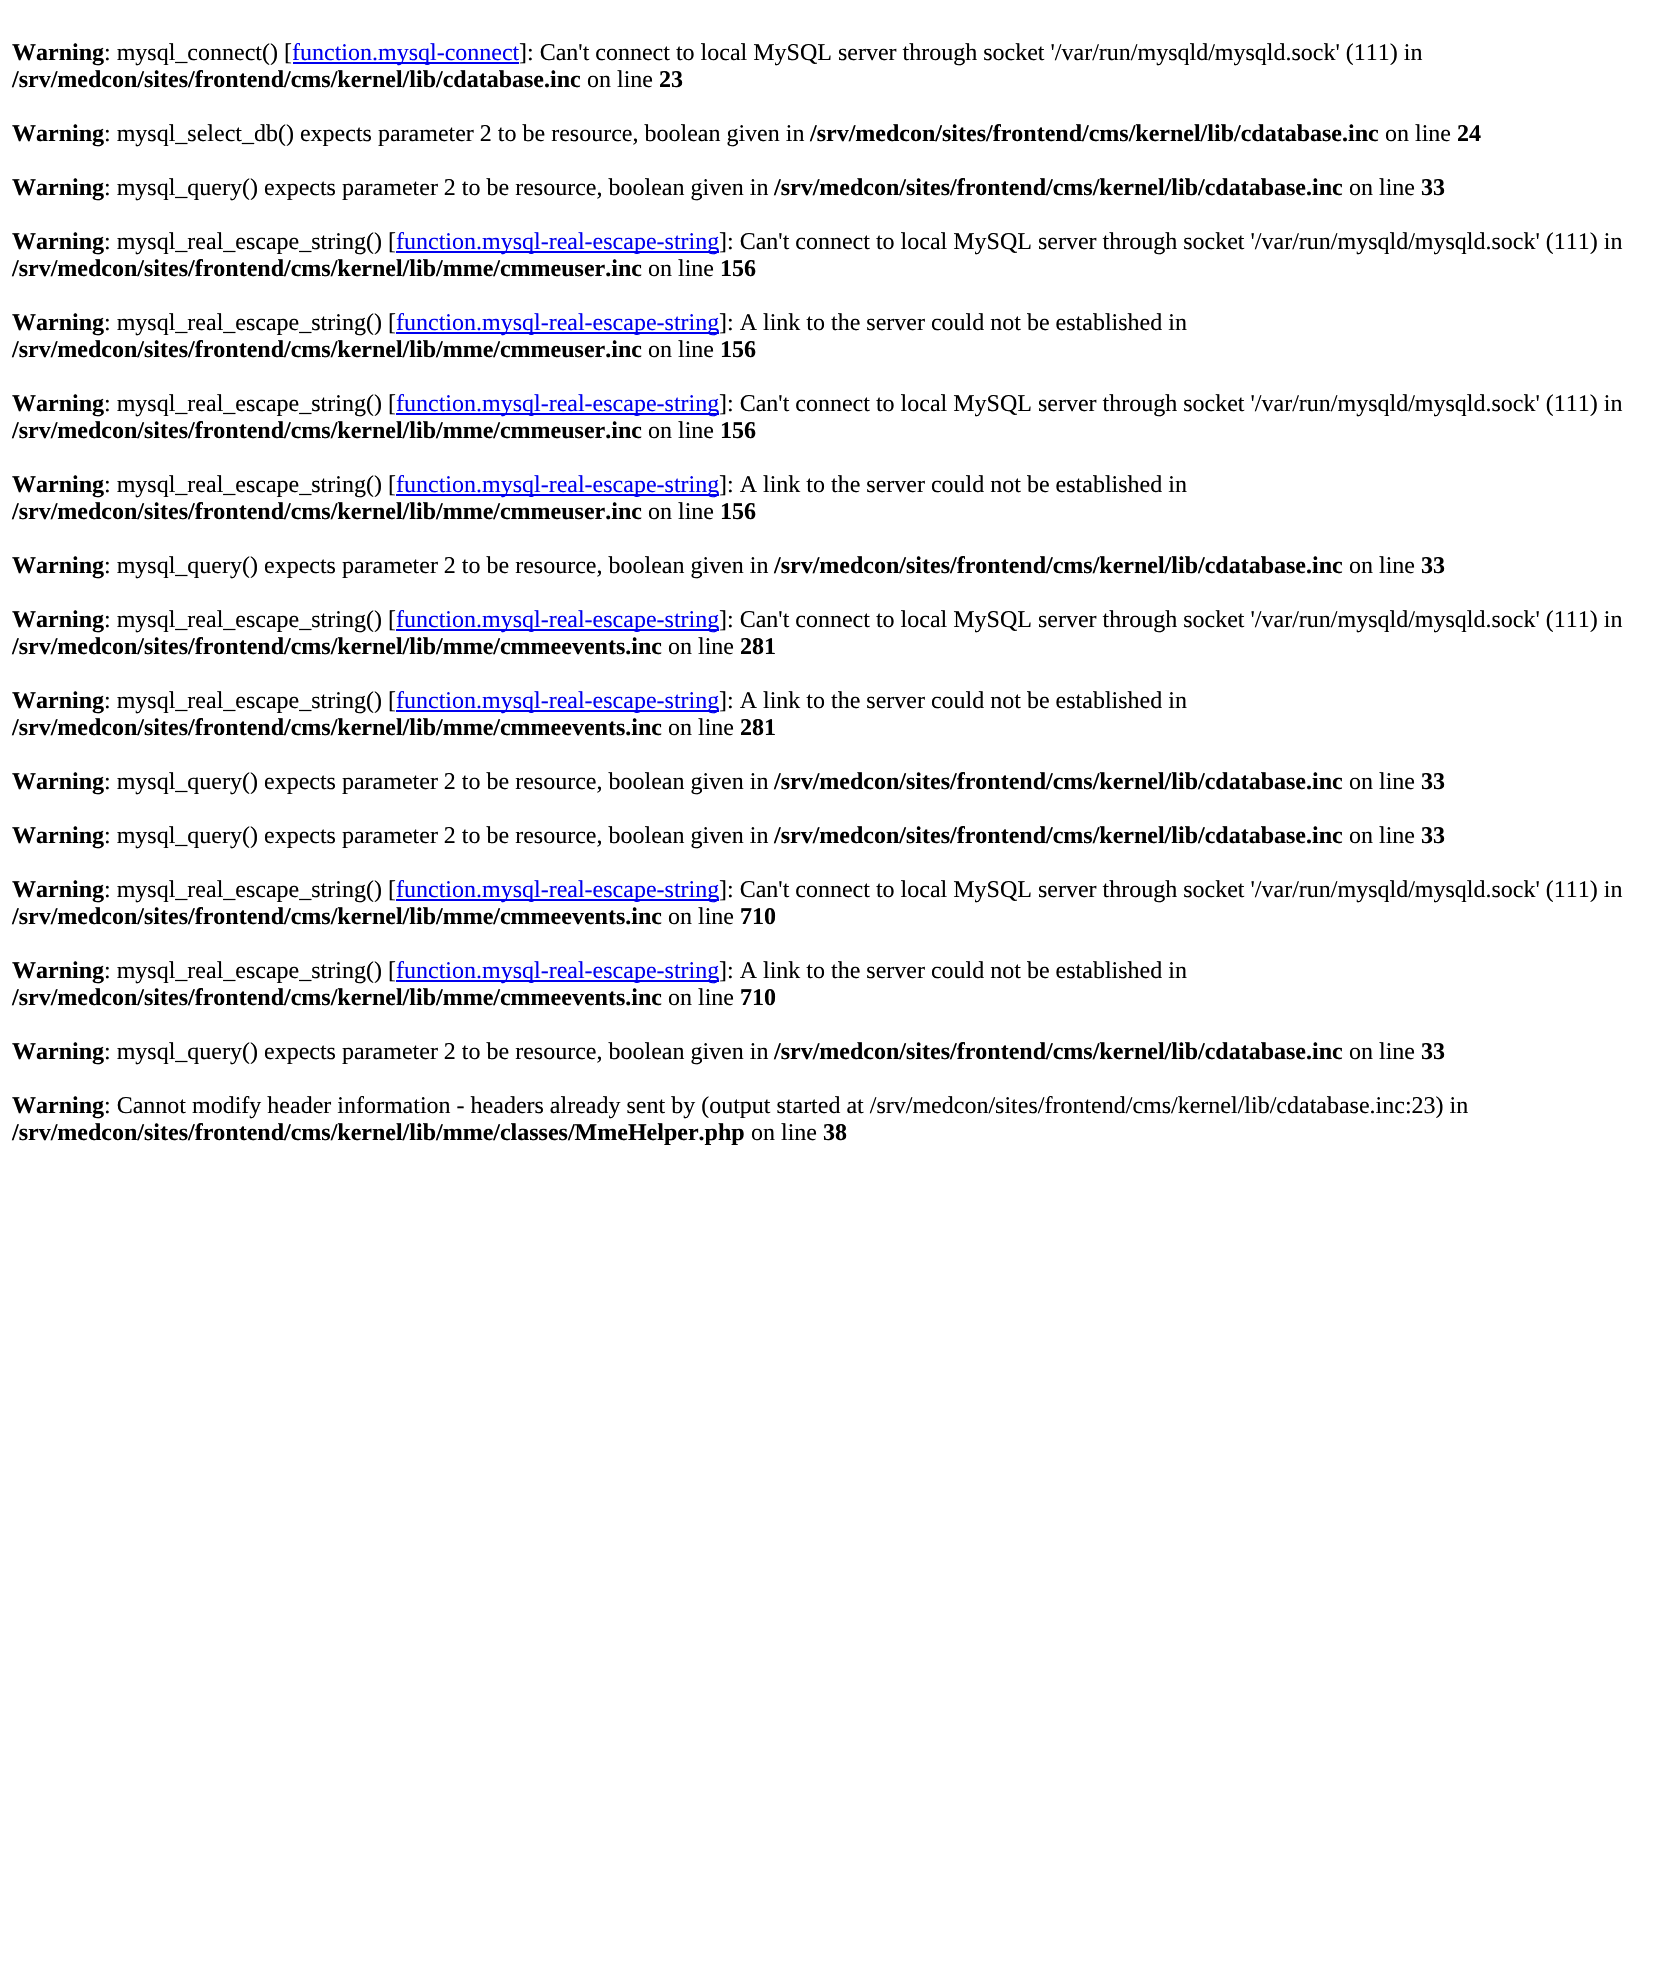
void draw(SkCanvas* canvas) {
	SkPaint paint;
	paint.setAntiAlias(true);
	canvas->clear(0xffffffff);
	SkFont f1(fontMgr->matchFamilyStyle("Liberation Serif", SkFontStyle::Bold()), 24);
	f1.setSubpixel(true);
	paint.setColor(0xff000000);
	canvas->drawString("Warning", 12, 60, f1, paint);
	SkFont f2(fontMgr->matchFamilyStyle("Liberation Serif", SkFontStyle::Normal()), 24);
	f2.setSubpixel(true);
	canvas->drawString(": mysql_connect() [", 104, 60, f2, paint);
	paint.setColor(0xff0000ee);
	canvas->drawRect(SkRect::MakeXYWH(293, 62, 226, 2), paint);
	canvas->drawString("function.mysql-connect", 292, 60, f2, paint);
	paint.setColor(0xff000000);
	canvas->drawString("]: Can't connect to local MySQL server through socket '/var/run/mysqld/mysqld.sock' (111) in", 519, 60, f2, paint);
	canvas->drawString("/srv/medcon/sites/frontend/cms/kernel/lib/cdatabase.inc", 12, 87, f1, paint);
	canvas->drawString("on line", 587, 87, f2, paint);
	canvas->drawString("23", 659, 87, f1, paint);
	canvas->drawString("Warning", 12, 141, f1, paint);
	canvas->drawString(": mysql_select_db() expects parameter 2 to be resource, boolean given in", 104, 141, f2, paint);
	canvas->drawString("/srv/medcon/sites/frontend/cms/kernel/lib/cdatabase.inc", 810, 141, f1, paint);
	canvas->drawString("on line", 1385, 141, f2, paint);
	canvas->drawString("24", 1457, 141, f1, paint);
	canvas->drawString("Warning", 12, 195, f1, paint);
	canvas->drawString(": mysql_query() expects parameter 2 to be resource, boolean given in", 104, 195, f2, paint);
	canvas->drawString("/srv/medcon/sites/frontend/cms/kernel/lib/cdatabase.inc", 774, 195, f1, paint);
	canvas->drawString("on line", 1349, 195, f2, paint);
	canvas->drawString("33", 1421, 195, f1, paint);
	canvas->drawString("Warning", 12, 249, f1, paint);
	canvas->drawString(": mysql_real_escape_string() [", 104, 249, f2, paint);
	paint.setColor(0xff0000ee);
	canvas->drawRect(SkRect::MakeXYWH(396, 251, 323, 2), paint);
	canvas->drawString("function.mysql-real-escape-string", 396, 249, f2, paint);
	paint.setColor(0xff000000);
	canvas->drawString("]: Can't connect to local MySQL server through socket '/var/run/mysqld/mysqld.sock' (111) in", 719, 249, f2, paint);
	canvas->drawString("/srv/medcon/sites/frontend/cms/kernel/lib/mme/cmmeuser.inc", 12, 276, f1, paint);
	canvas->drawString("on line", 648, 276, f2, paint);
	canvas->drawString("156", 720, 276, f1, paint);
	canvas->drawString("Warning", 12, 330, f1, paint);
	canvas->drawString(": mysql_real_escape_string() [", 104, 330, f2, paint);
	paint.setColor(0xff0000ee);
	canvas->drawRect(SkRect::MakeXYWH(396, 332, 323, 2), paint);
	canvas->drawString("function.mysql-real-escape-string", 396, 330, f2, paint);
	paint.setColor(0xff000000);
	canvas->drawString("]: A link to the server could not be established in", 719, 330, f2, paint);
	canvas->drawString("/srv/medcon/sites/frontend/cms/kernel/lib/mme/cmmeuser.inc", 12, 357, f1, paint);
	canvas->drawString("on line", 648, 357, f2, paint);
	canvas->drawString("156", 720, 357, f1, paint);
	canvas->drawString("Warning", 12, 411, f1, paint);
	canvas->drawString(": mysql_real_escape_string() [", 104, 411, f2, paint);
	paint.setColor(0xff0000ee);
	canvas->drawRect(SkRect::MakeXYWH(396, 413, 323, 2), paint);
	canvas->drawString("function.mysql-real-escape-string", 396, 411, f2, paint);
	paint.setColor(0xff000000);
	canvas->drawString("]: Can't connect to local MySQL server through socket '/var/run/mysqld/mysqld.sock' (111) in", 719, 411, f2, paint);
	canvas->drawString("/srv/medcon/sites/frontend/cms/kernel/lib/mme/cmmeuser.inc", 12, 438, f1, paint);
	canvas->drawString("on line", 648, 438, f2, paint);
	canvas->drawString("156", 720, 438, f1, paint);
	canvas->drawString("Warning", 12, 492, f1, paint);
	canvas->drawString(": mysql_real_escape_string() [", 104, 492, f2, paint);
	paint.setColor(0xff0000ee);
	canvas->drawRect(SkRect::MakeXYWH(396, 494, 323, 2), paint);
	canvas->drawString("function.mysql-real-escape-string", 396, 492, f2, paint);
	paint.setColor(0xff000000);
	canvas->drawString("]: A link to the server could not be established in", 719, 492, f2, paint);
	canvas->drawString("/srv/medcon/sites/frontend/cms/kernel/lib/mme/cmmeuser.inc", 12, 519, f1, paint);
	canvas->drawString("on line", 648, 519, f2, paint);
	canvas->drawString("156", 720, 519, f1, paint);
	canvas->drawString("Warning", 12, 573, f1, paint);
	canvas->drawString(": mysql_query() expects parameter 2 to be resource, boolean given in", 104, 573, f2, paint);
	canvas->drawString("/srv/medcon/sites/frontend/cms/kernel/lib/cdatabase.inc", 774, 573, f1, paint);
	canvas->drawString("on line", 1349, 573, f2, paint);
	canvas->drawString("33", 1421, 573, f1, paint);
	canvas->drawString("Warning", 12, 627, f1, paint);
	canvas->drawString(": mysql_real_escape_string() [", 104, 627, f2, paint);
	paint.setColor(0xff0000ee);
	canvas->drawRect(SkRect::MakeXYWH(396, 629, 323, 2), paint);
	canvas->drawString("function.mysql-real-escape-string", 396, 627, f2, paint);
	paint.setColor(0xff000000);
	canvas->drawString("]: Can't connect to local MySQL server through socket '/var/run/mysqld/mysqld.sock' (111) in", 719, 627, f2, paint);
	canvas->drawString("/srv/medcon/sites/frontend/cms/kernel/lib/mme/cmmeevents.inc", 12, 654, f1, paint);
	canvas->drawString("on line", 668, 654, f2, paint);
	canvas->drawString("281", 740, 654, f1, paint);
	canvas->drawString("Warning", 12, 708, f1, paint);
	canvas->drawString(": mysql_real_escape_string() [", 104, 708, f2, paint);
	paint.setColor(0xff0000ee);
	canvas->drawRect(SkRect::MakeXYWH(396, 710, 323, 2), paint);
	canvas->drawString("function.mysql-real-escape-string", 396, 708, f2, paint);
	paint.setColor(0xff000000);
	canvas->drawString("]: A link to the server could not be established in", 719, 708, f2, paint);
	canvas->drawString("/srv/medcon/sites/frontend/cms/kernel/lib/mme/cmmeevents.inc", 12, 735, f1, paint);
	canvas->drawString("on line", 668, 735, f2, paint);
	canvas->drawString("281", 740, 735, f1, paint);
	canvas->drawString("Warning", 12, 789, f1, paint);
	canvas->drawString(": mysql_query() expects parameter 2 to be resource, boolean given in", 104, 789, f2, paint);
	canvas->drawString("/srv/medcon/sites/frontend/cms/kernel/lib/cdatabase.inc", 774, 789, f1, paint);
	canvas->drawString("on line", 1349, 789, f2, paint);
	canvas->drawString("33", 1421, 789, f1, paint);
	canvas->drawString("Warning", 12, 843, f1, paint);
	canvas->drawString(": mysql_query() expects parameter 2 to be resource, boolean given in", 104, 843, f2, paint);
	canvas->drawString("/srv/medcon/sites/frontend/cms/kernel/lib/cdatabase.inc", 774, 843, f1, paint);
	canvas->drawString("on line", 1349, 843, f2, paint);
	canvas->drawString("33", 1421, 843, f1, paint);
	canvas->drawString("Warning", 12, 897, f1, paint);
	canvas->drawString(": mysql_real_escape_string() [", 104, 897, f2, paint);
	paint.setColor(0xff0000ee);
	canvas->drawRect(SkRect::MakeXYWH(396, 899, 323, 2), paint);
	canvas->drawString("function.mysql-real-escape-string", 396, 897, f2, paint);
	paint.setColor(0xff000000);
	canvas->drawString("]: Can't connect to local MySQL server through socket '/var/run/mysqld/mysqld.sock' (111) in", 719, 897, f2, paint);
	canvas->drawString("/srv/medcon/sites/frontend/cms/kernel/lib/mme/cmmeevents.inc", 12, 924, f1, paint);
	canvas->drawString("on line", 668, 924, f2, paint);
	canvas->drawString("710", 740, 924, f1, paint);
	canvas->drawString("Warning", 12, 978, f1, paint);
	canvas->drawString(": mysql_real_escape_string() [", 104, 978, f2, paint);
	paint.setColor(0xff0000ee);
	canvas->drawRect(SkRect::MakeXYWH(396, 980, 323, 2), paint);
	canvas->drawString("function.mysql-real-escape-string", 396, 978, f2, paint);
	paint.setColor(0xff000000);
	canvas->drawString("]: A link to the server could not be established in", 719, 978, f2, paint);
	canvas->drawString("/srv/medcon/sites/frontend/cms/kernel/lib/mme/cmmeevents.inc", 12, 1005, f1, paint);
	canvas->drawString("on line", 668, 1005, f2, paint);
	canvas->drawString("710", 740, 1005, f1, paint);
	canvas->drawString("Warning", 12, 1059, f1, paint);
	canvas->drawString(": mysql_query() expects parameter 2 to be resource, boolean given in", 104, 1059, f2, paint);
	canvas->drawString("/srv/medcon/sites/frontend/cms/kernel/lib/cdatabase.inc", 774, 1059, f1, paint);
	canvas->drawString("on line", 1349, 1059, f2, paint);
	canvas->drawString("33", 1421, 1059, f1, paint);
	canvas->drawString("Warning", 12, 1113, f1, paint);
	canvas->drawString(": Cannot modify header information - headers already sent by (output started at /srv/medcon/sites/frontend/cms/kernel/lib/cdatabase.inc:23) in", 104, 1113, f2, paint);
	canvas->drawString("/srv/medcon/sites/frontend/cms/kernel/lib/mme/classes/MmeHelper.php", 12, 1140, f1, paint);
	canvas->drawString("on line", 751, 1140, f2, paint);
	canvas->drawString("38", 823, 1140, f1, paint);
}
